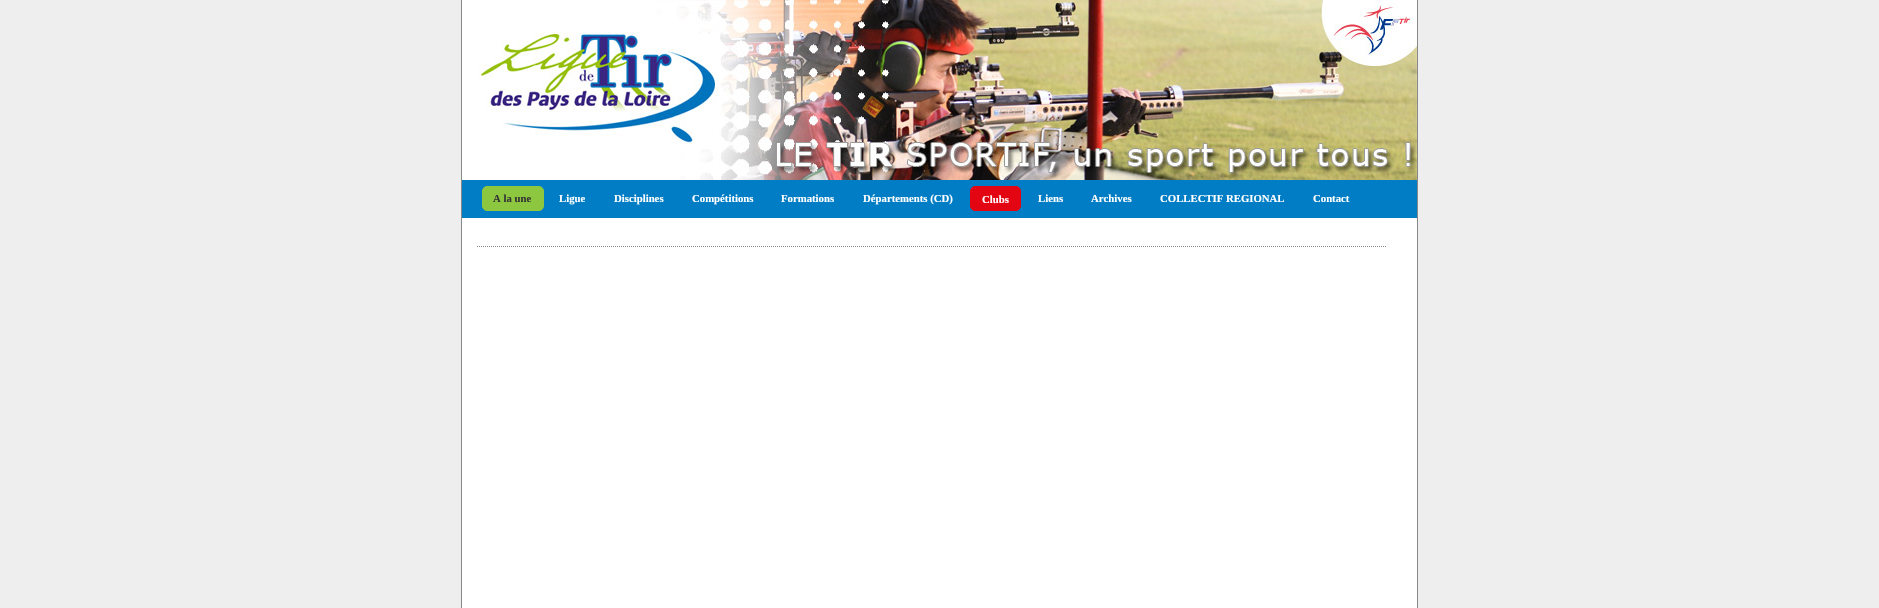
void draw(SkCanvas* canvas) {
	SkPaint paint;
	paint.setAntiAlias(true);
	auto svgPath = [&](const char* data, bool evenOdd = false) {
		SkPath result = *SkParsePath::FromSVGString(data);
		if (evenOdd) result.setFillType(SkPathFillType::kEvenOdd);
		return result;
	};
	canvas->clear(0xffeeeeee);
	paint.setColor(0xff888888);
	canvas->drawRect(SkRect::MakeXYWH(1417, 0, 1, 608), paint);
	canvas->drawRect(SkRect::MakeXYWH(461, 0, 1, 608), paint);
	canvas->drawImageRect(SkImages::DeferredFromEncodedData(SkData::MakeFromFileName("img1.png")), SkRect::MakeXYWH(462, 0, 955, 180), SkSamplingOptions());
	paint.setColor(0xff007dc4);
	canvas->drawRect(SkRect::MakeXYWH(462, 180, 955, 38), paint);
	paint.setColor(0xff8dc73f);
	canvas->drawRoundRect(SkRect::MakeXYWH(482.5, 186.5, 61, 24), 4.5, 4.5, paint);
	paint.setStroke(true);
	paint.setStrokeWidth(1);
	canvas->drawRoundRect(SkRect::MakeXYWH(482.5, 186.5, 61, 24), 4.5, 4.5, paint);
	SkFont f1(fontMgr->matchFamilyStyle("Liberation Serif", SkFontStyle::Bold()), 10.75);
	f1.setSubpixel(true);
	paint.setStroke(false);
	paint.setColor(0xff333333);
	canvas->drawString("A la une", 493, 202, f1, paint);
	paint.setColor(0xffffffff);
	canvas->drawString("Ligue", 559, 202, f1, paint);
	canvas->drawString("Disciplines", 614, 202, f1, paint);
	canvas->drawString("Compétitions", 692, 202, f1, paint);
	canvas->drawString("Formations", 781, 202, f1, paint);
	canvas->drawString("Départements (CD)", 863, 202, f1, paint);
	paint.setColor(0xffe30612);
	canvas->drawRoundRect(SkRect::MakeXYWH(970.5, 186.5, 50, 24), 4.5, 4.5, paint);
	paint.setStroke(true);
	canvas->drawRoundRect(SkRect::MakeXYWH(970.5, 186.5, 50, 24), 4.5, 4.5, paint);
	paint.setStroke(false);
	paint.setColor(0xffffffff);
	canvas->drawString("Clubs", 982, 203, f1, paint);
	canvas->drawString("Liens", 1038, 202, f1, paint);
	canvas->drawString("Archives", 1091, 202, f1, paint);
	canvas->drawString("COLLECTIF REGIONAL", 1160, 202, f1, paint);
	canvas->drawString("Contact", 1313, 202, f1, paint);
	canvas->drawRect(SkRect::MakeXYWH(462, 218, 955, 390), paint);
	paint.setStroke(true);
	paint.setColor(0xff888888);
	paint.setPathEffect(SkDashPathEffect::Make({{1, 1}}, 0));
	canvas->drawPath(svgPath("M477 246.5H1387"), paint);
	paint.setPathEffect(nullptr);
}
